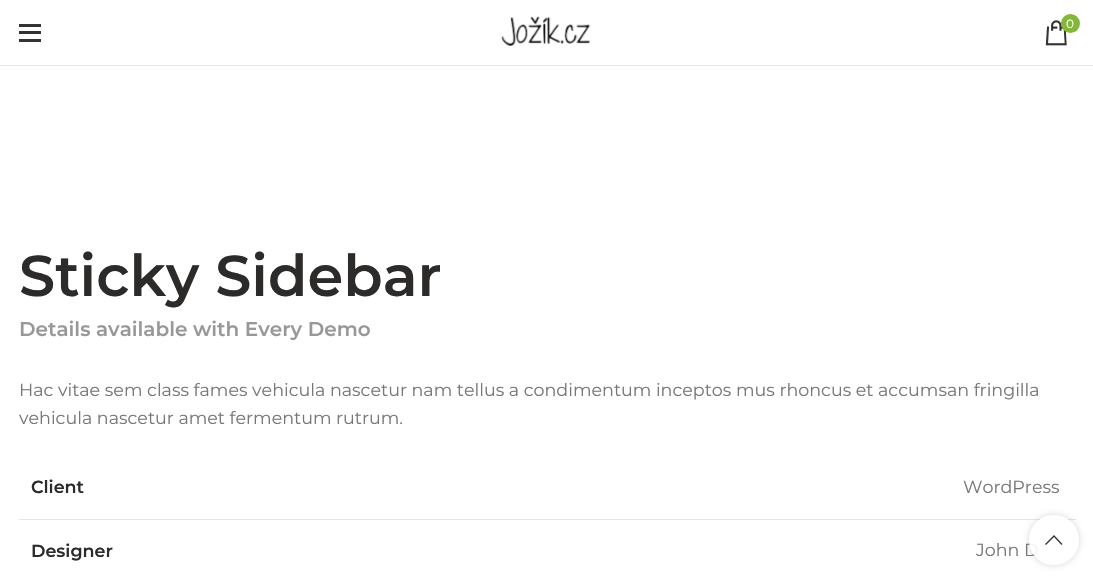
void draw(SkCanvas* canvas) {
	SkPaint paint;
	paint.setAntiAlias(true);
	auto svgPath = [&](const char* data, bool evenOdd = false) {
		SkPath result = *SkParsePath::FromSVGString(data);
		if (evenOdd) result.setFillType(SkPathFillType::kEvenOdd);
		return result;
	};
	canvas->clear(0xffffffff);
	paint.setColor(0xffe8e8e8);
	canvas->drawRect(SkRect::MakeXYWH(0, 65, 1093, 1), paint);
	paint.setColor(0xff333333);
	canvas->drawRect(SkRect::MakeXYWH(19, 31, 22, 3), paint);
	canvas->drawRect(SkRect::MakeXYWH(19, 24, 22, 3), paint);
	canvas->drawRect(SkRect::MakeXYWH(19, 39, 22, 3), paint);
	canvas->drawImageRect(SkImages::DeferredFromEncodedData(SkData::MakeFromFileName("img1.png")), SkRect::MakeXYWH(501, 16, 90, 30), SkSamplingOptions());
	canvas->drawImageRect(SkImages::DeferredFromEncodedData(SkData::MakeFromFileName("img2.png")), SkRect::MakeXYWH(1045, 20, 22, 26), SkSamplingOptions());
	paint.setColor(0xff83b735);
	canvas->drawCircle(1070.5, 23.5, 9.5, paint);
	SkFont f1(fontMgr->matchFamilyStyle("Montserrat", SkFontStyle::Normal()), 12);
	f1.setSubpixel(true);
	paint.setColor(0xffffffff);
	canvas->drawString("0", 1066, 28, f1, paint);
	SkFont f2(fontMgr->matchFamilyStyle("Montserrat", SkFontStyle(600, SkFontStyle::kNormal_Width, SkFontStyle::kUpright_Slant)), 57.5);
	f2.setSubpixel(true);
	paint.setColor(0xff2d2a2a);
	canvas->drawString("Sticky Sidebar", 19, 296, f2, paint);
	SkFont f3(fontMgr->matchFamilyStyle("Montserrat", SkFontStyle(600, SkFontStyle::kNormal_Width, SkFontStyle::kUpright_Slant)), 20);
	f3.setSubpixel(true);
	paint.setColor(0xff989898);
	canvas->drawString("Details available with Every Demo", 19, 336, f3, paint);
	SkFont f4(fontMgr->matchFamilyStyle("Montserrat", SkFontStyle::Normal()), 17.5);
	f4.setSubpixel(true);
	paint.setColor(0xff777777);
	canvas->drawString("Hac vitae sem class fames vehicula nascetur nam tellus a condimentum inceptos mus rhoncus et accumsan fringilla", 19, 396, f4, paint);
	canvas->drawString("vehicula nascetur amet fermentum rutrum.", 19, 424, f4, paint);
	SkFont f5(fontMgr->matchFamilyStyle("Montserrat", SkFontStyle(600, SkFontStyle::kNormal_Width, SkFontStyle::kUpright_Slant)), 17.5);
	f5.setSubpixel(true);
	paint.setColor(0xff2d2a2a);
	canvas->drawString("Client", 31, 493, f5, paint);
	paint.setColor(0xffe6e6e6);
	canvas->drawRect(SkRect::MakeXYWH(19, 519, 1057, 1), paint);
	paint.setColor(0xff777777);
	canvas->drawString("WordPress", 963, 493, f4, paint);
	paint.setColor(0xff2d2a2a);
	canvas->drawString("Designer", 31, 557, f5, paint);
	paint.setColor(0xff777777);
	canvas->drawString("John D", 976, 556, f4, paint);
	canvas->save();
	canvas->clipPath(svgPath("M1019 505H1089V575H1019ZM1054 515C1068 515 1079 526 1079 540C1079 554 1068 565 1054 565C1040 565 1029 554 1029 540C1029 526 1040 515 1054 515Z", true), true);
	paint.setColor(0x2b000000);
	paint.setMaskFilter(SkMaskFilter::MakeBlur(kNormal_SkBlurStyle, 3));
	canvas->drawRoundRect(SkRect::MakeXYWH(1029, 515, 50, 50), 25, 25, paint);
	paint.setMaskFilter(nullptr);
	canvas->restore();
	paint.setColor(0xe6ffffff);
	canvas->drawCircle(1054, 540, 25, paint);
	paint.setColor(0xff333333);
	canvas->drawPath(svgPath("M1054 535L1062.5 544L1061.5 545L1054 537L1046 545L1045 544Z"), paint);
}
